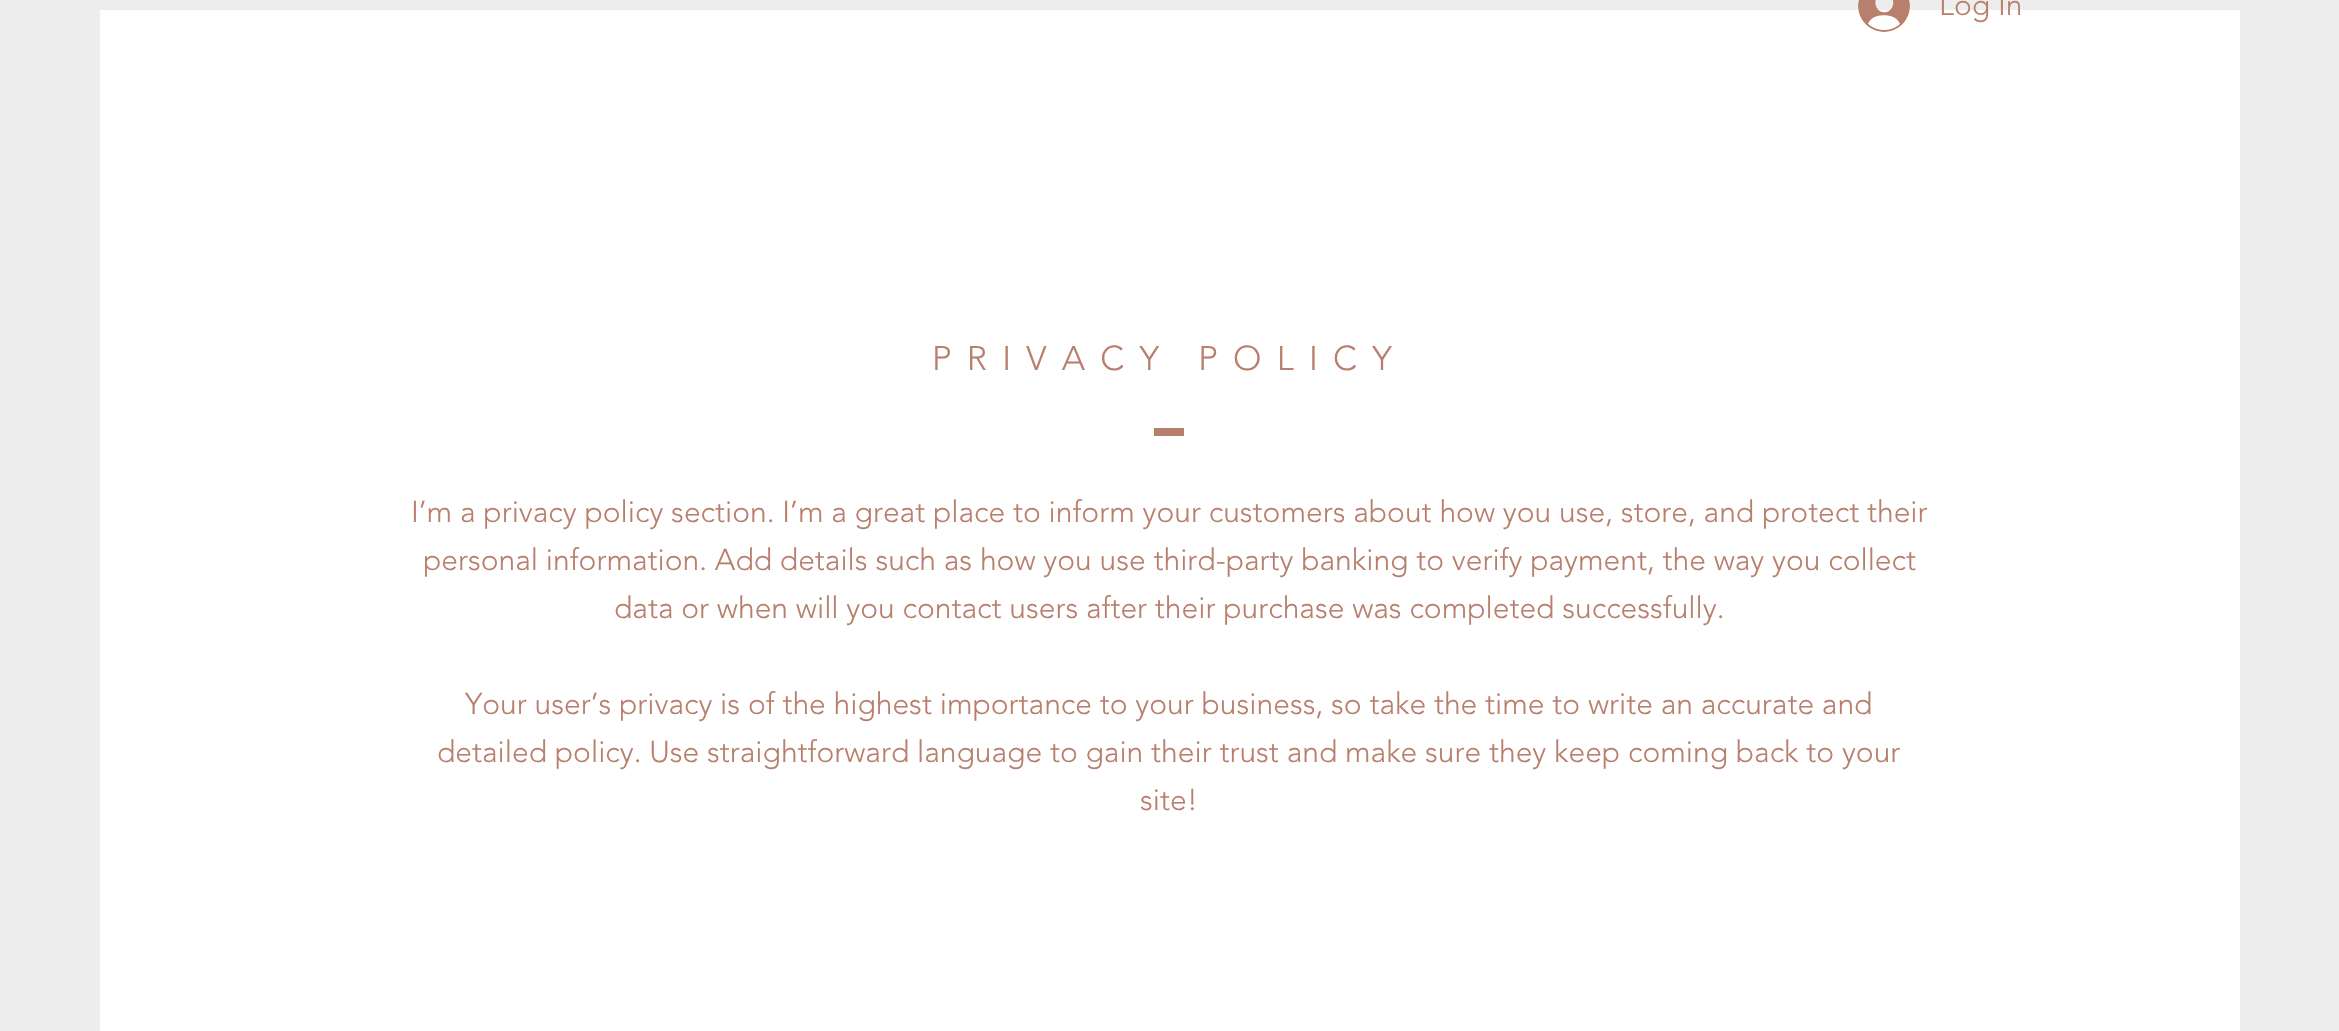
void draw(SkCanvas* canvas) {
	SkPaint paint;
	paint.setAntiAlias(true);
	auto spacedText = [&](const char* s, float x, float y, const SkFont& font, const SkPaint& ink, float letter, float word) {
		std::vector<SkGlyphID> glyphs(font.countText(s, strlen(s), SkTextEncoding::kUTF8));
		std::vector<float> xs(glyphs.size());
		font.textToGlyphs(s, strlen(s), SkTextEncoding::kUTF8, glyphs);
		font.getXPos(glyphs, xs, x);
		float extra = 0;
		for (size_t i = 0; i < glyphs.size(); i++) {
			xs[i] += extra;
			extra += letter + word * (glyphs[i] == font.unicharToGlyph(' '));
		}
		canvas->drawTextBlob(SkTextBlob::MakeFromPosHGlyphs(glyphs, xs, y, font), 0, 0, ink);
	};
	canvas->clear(0xffededee);
	paint.setColor(0xffffffff);
	canvas->drawRect(SkRect::MakeXYWH(100, 10, 2140, 1021), paint);
	canvas->drawImageRect(SkImages::DeferredFromEncodedData(SkData::MakeFromFileName("img1.png")), SkRect::MakeXYWH(1858, 0, 52, 32), SkSamplingOptions());
	SkFont f1(fontMgr->matchFamilyStyle("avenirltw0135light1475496", SkFontStyle(300, SkFontStyle::kNormal_Width, SkFontStyle::kUpright_Slant)), 30);
	f1.setSubpixel(true);
	paint.setColor(0xffb97f6d);
	canvas->drawString("Log In", 1939, 15, f1, paint);
	SkFont f2(fontMgr->matchFamilyStyle("avenirltw0135light1475496", SkFontStyle(300, SkFontStyle::kNormal_Width, SkFontStyle::kUpright_Slant)), 34);
	f2.setSubpixel(true);
	spacedText("PRIVACY POLICY", 932, 370, f2, paint, 15.25, 0);
	canvas->drawRect(SkRect::MakeXYWH(1154, 428, 30, 8), paint);
	canvas->drawString("I’m a privacy policy section. I’m a great place to inform your customers about how you use, store, and protect their", 411, 522, f1, paint);
	canvas->drawString("personal information. Add details such as how you use third-party banking to verify payment, the way you collect", 423, 570, f1, paint);
	canvas->drawString("data or when will you contact users after their purchase was completed successfully.", 614, 618, f1, paint);
	canvas->drawString("Your user’s privacy is of the highest importance to your business, so take the time to write an accurate and", 465, 714, f1, paint);
	canvas->drawString("detailed policy. Use straightforward language to gain their trust and make sure they keep coming back to your", 437, 762, f1, paint);
	canvas->drawString("site!", 1140, 810, f1, paint);
}
